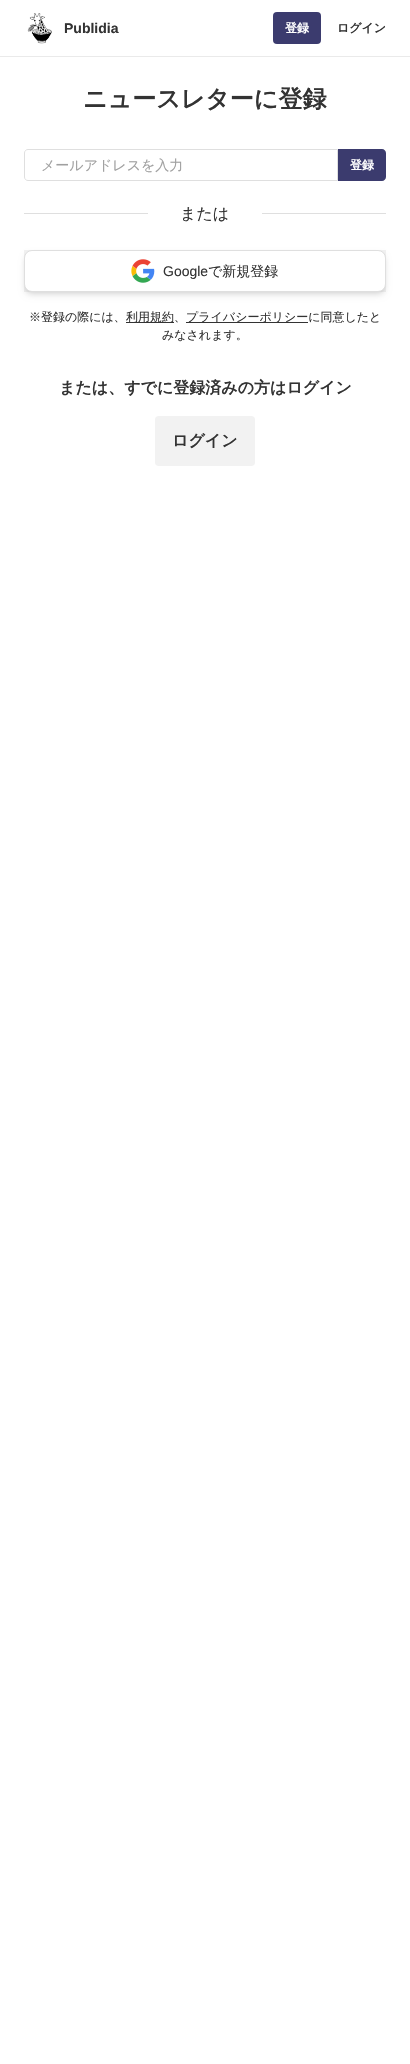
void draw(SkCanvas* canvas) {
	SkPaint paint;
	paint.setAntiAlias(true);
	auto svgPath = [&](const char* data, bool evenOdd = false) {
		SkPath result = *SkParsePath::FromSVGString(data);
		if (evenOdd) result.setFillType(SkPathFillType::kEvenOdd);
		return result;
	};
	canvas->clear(0xffffffff);
	paint.setColor(0xffeaeaea);
	canvas->drawRect(SkRect::MakeXYWH(0, 56, 410, 1), paint);
	canvas->drawImageRect(SkImages::DeferredFromEncodedData(SkData::MakeFromFileName("img1.png")), SkRect::MakeXYWH(27, 13, 25, 31), SkSamplingOptions());
	SkFont f1(fontMgr->matchFamilyStyle("Liberation Sans", SkFontStyle::Bold()), 14);
	f1.setSubpixel(true);
	paint.setColor(0xff333333);
	canvas->drawString("Publidia", 64, 33, f1, paint);
	paint.setColor(0xff3b3b6e);
	canvas->drawRoundRect(SkRect::MakeXYWH(273, 12, 48, 32), 4, 4, paint);
	SkFont f2(fontMgr->matchFamilyStyle("WenQuanYi Zen Hei", SkFontStyle::Bold()), 12);
	f2.setSubpixel(true);
	paint.setColor(0xffffffff);
	canvas->drawString("登録", 285, 32, f2, paint);
	paint.setColor(0xff333333);
	canvas->drawString("ログイン", 337, 32, f2, paint);
	SkFont f3(fontMgr->matchFamilyStyle("WenQuanYi Zen Hei", SkFontStyle::Bold()), 24);
	f3.setSubpixel(true);
	canvas->drawString("ニュースレターに登録", 83, 107, f3, paint);
	paint.setStroke(true);
	paint.setStrokeWidth(1);
	paint.setColor(0xffdfdfdf);
	canvas->drawPath(svgPath("M28 149.5H337.5V180.5H28C26 180.5 24.5 179 24.5 177V153C24.5 151 26 149.5 28 149.5Z"), paint);
	SkFont f4(fontMgr->matchFamilyStyle("WenQuanYi Zen Hei", SkFontStyle(500, SkFontStyle::kNormal_Width, SkFontStyle::kUpright_Slant)), 14);
	f4.setSubpixel(true);
	paint.setStroke(false);
	paint.setColor(0xffa0a0a0);
	canvas->drawString("メールアドレスを入力", 41, 170, f4, paint);
	paint.setColor(0xff3b3b6e);
	canvas->drawPath(svgPath("M338 149H382C384 149 386 151 386 153V177C386 179 384 181 382 181H338Z"), paint);
	paint.setColor(0xffffffff);
	canvas->drawString("登録", 350, 169, f2, paint);
	paint.setColor(0xffdfdfdf);
	canvas->drawRect(SkRect::MakeXYWH(24, 213, 362, 1), paint);
	paint.setColor(0xffffffff);
	canvas->drawRect(SkRect::MakeXYWH(148, 213, 114, 1), paint);
	SkFont f5(fontMgr->matchFamilyStyle("WenQuanYi Zen Hei", SkFontStyle(500, SkFontStyle::kNormal_Width, SkFontStyle::kUpright_Slant)), 16);
	f5.setSubpixel(true);
	paint.setColor(0xff333333);
	canvas->drawString("または", 180, 219, f5, paint);
	paint.setColor(0xfff2f2f2);
	canvas->drawRect(SkRect::MakeXYWH(24, 250, 362, 42), paint);
	paint.setColor(0x1a000000);
	paint.setMaskFilter(SkMaskFilter::MakeBlur(kNormal_SkBlurStyle, 2));
	canvas->drawRoundRect(SkRect::MakeXYWH(26, 254, 358, 38), 6, 6, paint);
	paint.setMaskFilter(nullptr);
	paint.setMaskFilter(SkMaskFilter::MakeBlur(kNormal_SkBlurStyle, 3));
	canvas->drawRoundRect(SkRect::MakeXYWH(25, 255, 360, 40), 7, 7, paint);
	paint.setMaskFilter(nullptr);
	paint.setColor(0xffffffff);
	canvas->drawRoundRect(SkRect::MakeXYWH(24.5, 250.5, 361, 41), 7.5, 7.5, paint);
	paint.setStroke(true);
	paint.setColor(0xffdfdfdf);
	canvas->drawRoundRect(SkRect::MakeXYWH(24.5, 250.5, 361, 41), 7.5, 7.5, paint);
	canvas->drawImageRect(SkImages::DeferredFromEncodedData(SkData::MakeFromFileName("img2.png")), SkRect::MakeXYWH(131, 259, 24, 24), SkSamplingOptions());
	SkFont f6(fontMgr->matchFamilyStyle("Liberation Sans", SkFontStyle::Normal()), 14);
	f6.setSubpixel(true);
	paint.setStroke(false);
	paint.setColor(0xff333333);
	canvas->drawString("Google", 163, 276, f6, paint);
	canvas->drawString("で新規登録", 208, 276, f4, paint);
	SkFont f7(fontMgr->matchFamilyStyle("WenQuanYi Zen Hei", SkFontStyle(500, SkFontStyle::kNormal_Width, SkFontStyle::kUpright_Slant)), 12);
	f7.setSubpixel(true);
	canvas->drawString("※登録の際には、", 29, 321, f7, paint);
	canvas->drawRect(SkRect::MakeXYWH(126, 322, 48, 1), paint);
	canvas->drawString("利用規約、", 126, 321, f7, paint);
	canvas->drawRect(SkRect::MakeXYWH(186, 322, 122, 1), paint);
	canvas->drawString("プライバシーポリシーに同意したと", 186, 321, f7, paint);
	canvas->drawString("みなされます。", 162, 339, f7, paint);
	SkFont f8(fontMgr->matchFamilyStyle("WenQuanYi Zen Hei", SkFontStyle::Bold()), 16);
	f8.setSubpixel(true);
	canvas->drawString("または、すでに登録済みの方はログイン", 59, 393, f8, paint);
	paint.setColor(0xfff2f2f2);
	canvas->drawRoundRect(SkRect::MakeXYWH(155, 416, 100, 50), 4, 4, paint);
	paint.setColor(0xff333333);
	canvas->drawString("ログイン", 172, 446, f8, paint);
}
